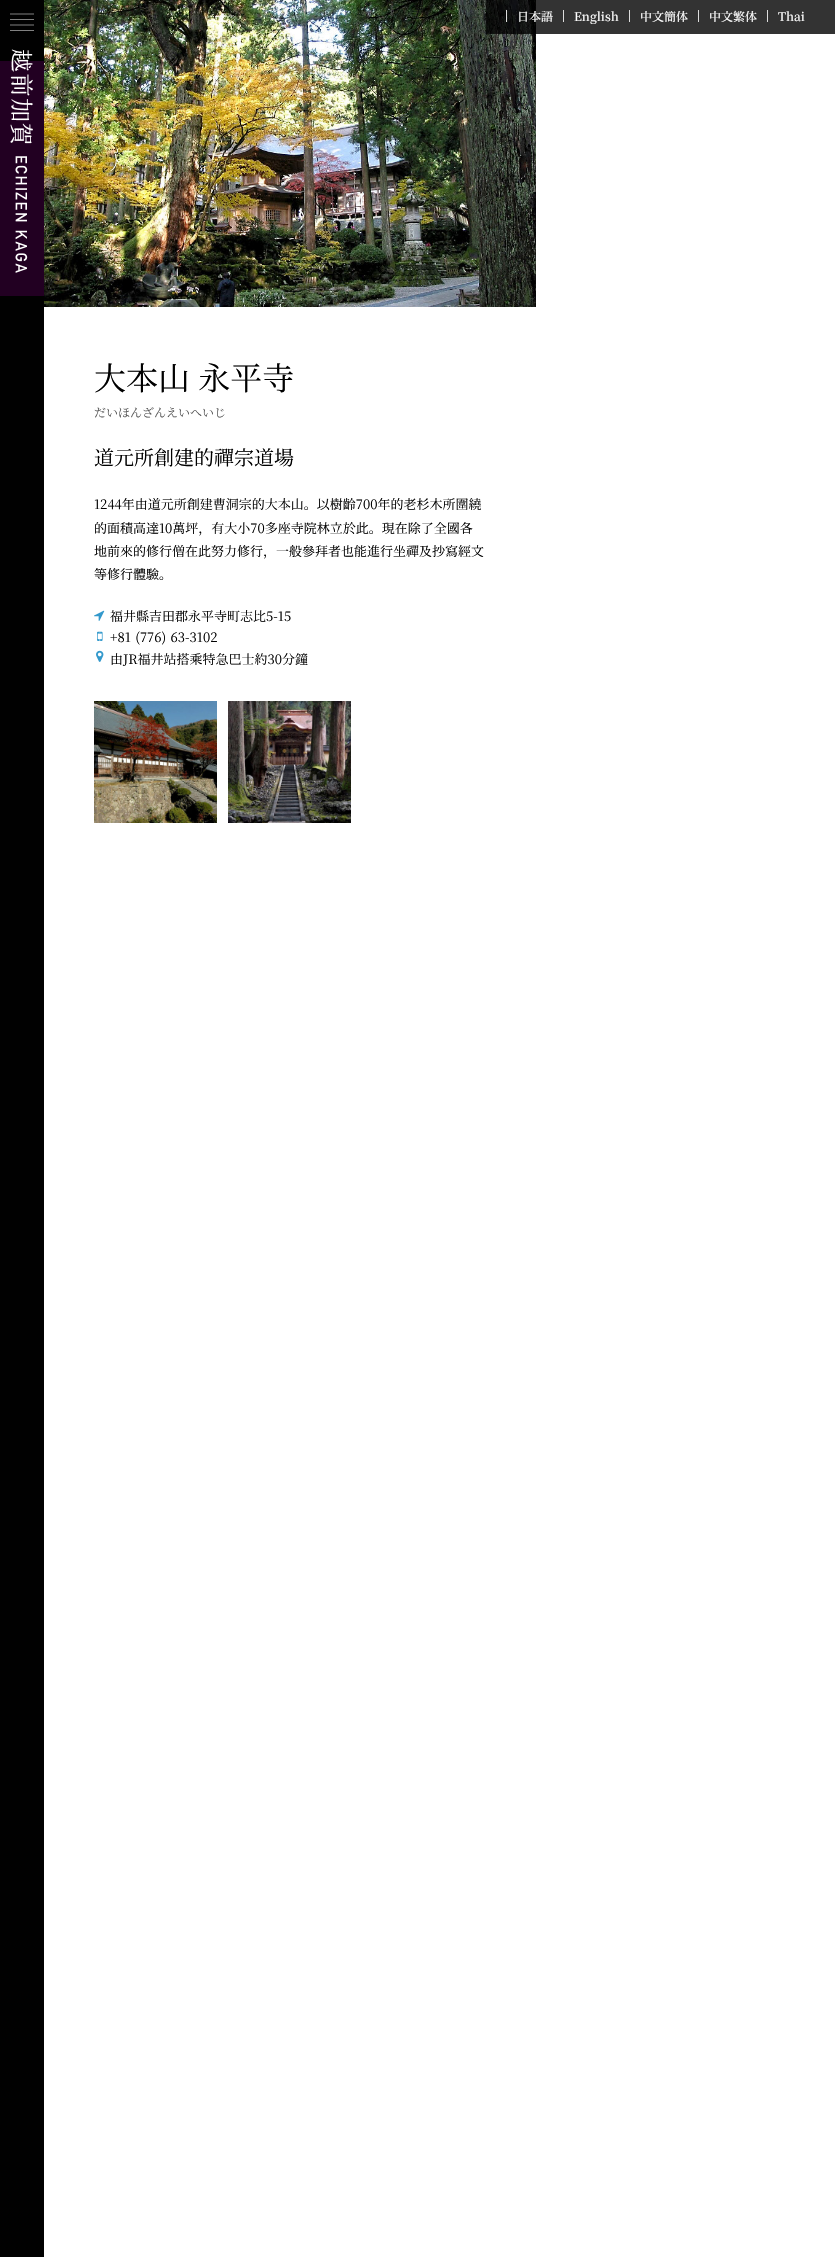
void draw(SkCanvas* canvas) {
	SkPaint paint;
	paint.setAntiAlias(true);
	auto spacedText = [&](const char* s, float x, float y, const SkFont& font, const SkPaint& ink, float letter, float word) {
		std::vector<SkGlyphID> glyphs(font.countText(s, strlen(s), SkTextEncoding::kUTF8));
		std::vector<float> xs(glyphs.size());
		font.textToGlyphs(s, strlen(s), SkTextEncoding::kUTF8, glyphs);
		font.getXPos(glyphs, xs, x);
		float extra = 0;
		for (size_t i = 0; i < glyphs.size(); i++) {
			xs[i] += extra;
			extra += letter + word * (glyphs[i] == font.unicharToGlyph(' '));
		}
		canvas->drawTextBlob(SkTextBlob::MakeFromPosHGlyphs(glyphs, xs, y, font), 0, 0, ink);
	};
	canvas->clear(0xffffffff);
	canvas->drawImageRect(SkImages::DeferredFromEncodedData(SkData::MakeFromFileName("img2.png")), SkRect::MakeXYWH(44, 0, 492, 307), SkSamplingOptions());
	paint.setColor(0xcc000000);
	canvas->drawRect(SkRect::MakeXYWH(486, 0, 349, 34), paint);
	paint.setColor(0xffdddddd);
	canvas->drawRect(SkRect::MakeXYWH(506, 10, 1, 12), paint);
	SkFont f1(fontMgr->matchFamilyStyle("Noto Serif JP", SkFontStyle(500, SkFontStyle::kNormal_Width, SkFontStyle::kUpright_Slant)), 12);
	f1.setSubpixel(true);
	paint.setColor(0xffffffff);
	canvas->drawString("日本語", 517, 21, f1, paint);
	paint.setColor(0xffdddddd);
	canvas->drawRect(SkRect::MakeXYWH(563, 10, 1, 12), paint);
	paint.setColor(0xffffffff);
	canvas->drawString("English", 574, 21, f1, paint);
	paint.setColor(0xffdddddd);
	canvas->drawRect(SkRect::MakeXYWH(629, 10, 1, 12), paint);
	paint.setColor(0xffffffff);
	canvas->drawString("中文簡体", 640, 21, f1, paint);
	paint.setColor(0xffdddddd);
	canvas->drawRect(SkRect::MakeXYWH(698, 10, 1, 12), paint);
	paint.setColor(0xffffffff);
	canvas->drawString("中文繁体", 709, 21, f1, paint);
	paint.setColor(0xffdddddd);
	canvas->drawRect(SkRect::MakeXYWH(767, 10, 1, 12), paint);
	paint.setColor(0xffffffff);
	canvas->drawString("Thai", 778, 21, f1, paint);
	paint.setColor(0xff010101);
	canvas->drawRect(SkRect::MakeXYWH(0, 0, 44, 2257), paint);
	paint.setColor(0xff220022);
	canvas->drawRect(SkRect::MakeXYWH(0, 61, 44, 235), paint);
	canvas->drawImageRect(SkImages::DeferredFromEncodedData(SkData::MakeFromFileName("img1.png")), SkRect::MakeXYWH(10, 13, 24, 260), SkSamplingOptions());
	SkFont f2(fontMgr->matchFamilyStyle("Noto Serif JP", SkFontStyle::Normal()), 32);
	f2.setSubpixel(true);
	paint.setColor(0xff000000);
	canvas->drawString("大本山 永平寺", 94, 390, f2, paint);
	SkFont f3(fontMgr->matchFamilyStyle("Noto Serif JP", SkFontStyle::Normal()), 12);
	f3.setSubpixel(true);
	paint.setColor(0xff555555);
	canvas->drawString("だいほんざんえいへいじ", 94, 417, f3, paint);
	SkFont f4(fontMgr->matchFamilyStyle("Noto Serif JP", SkFontStyle::Normal()), 20);
	f4.setSubpixel(true);
	paint.setColor(0xff000000);
	canvas->drawString("道元所創建的禪宗道場", 94, 465, f4, paint);
	SkFont f5(fontMgr->matchFamilyStyle("Noto Serif JP", SkFontStyle::Normal()), 13);
	f5.setSubpixel(true);
	canvas->drawString("1244年由道元所創建曹洞宗的大本山。以樹齡700年的老杉木所圍繞", 94, 509, f5, paint);
	canvas->drawString("的面積高達10萬坪，有大小70多座寺院林立於此。現在除了全國各", 94, 533, f5, paint);
	canvas->drawString("地前來的修行僧在此努力修行，一般參拜者也能進行坐禪及抄寫經文", 94, 556, f5, paint);
	canvas->drawString("等修行體驗。", 94, 579, f5, paint);
	canvas->drawImageRect(SkImages::DeferredFromEncodedData(SkData::MakeFromFileName("img3.png")), SkRect::MakeXYWH(94, 610, 11, 11), SkSamplingOptions());
	canvas->drawString("福井縣吉田郡永平寺町志比5-15", 110, 621, f5, paint);
	canvas->drawImageRect(SkImages::DeferredFromEncodedData(SkData::MakeFromFileName("img4.png")), SkRect::MakeXYWH(97, 631, 6, 10), SkSamplingOptions());
	spacedText("+81 (776) 63-3102", 110, 642, f5, paint, 0, 1);
	canvas->drawImageRect(SkImages::DeferredFromEncodedData(SkData::MakeFromFileName("img5.png")), SkRect::MakeXYWH(96, 650, 8, 12), SkSamplingOptions());
	canvas->drawString("由JR福井站搭乘特急巴士約30分鐘", 110, 664, f5, paint);
	canvas->drawImageRect(SkImages::DeferredFromEncodedData(SkData::MakeFromFileName("img6.png")), SkRect::MakeXYWH(94, 701, 123, 122), SkSamplingOptions());
	canvas->drawImageRect(SkImages::DeferredFromEncodedData(SkData::MakeFromFileName("img7.png")), SkRect::MakeXYWH(228, 701, 123, 122), SkSamplingOptions());
}
